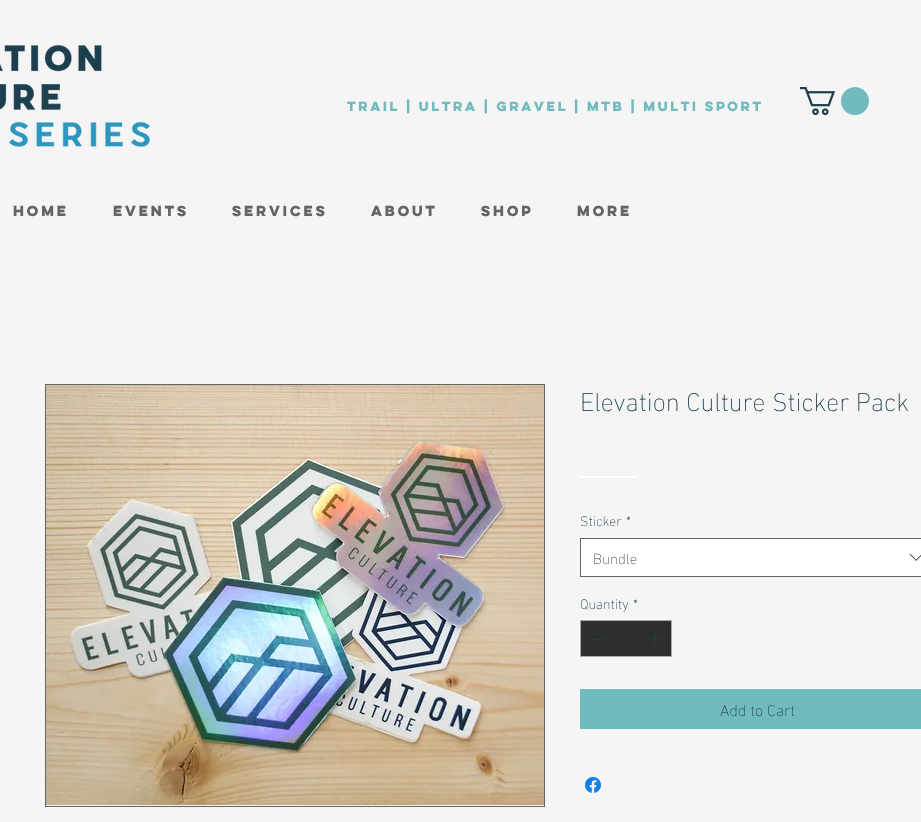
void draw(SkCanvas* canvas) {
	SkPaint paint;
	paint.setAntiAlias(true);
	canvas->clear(0xfff5f5f5);
	canvas->drawImageRect(SkImages::DeferredFromEncodedData(SkData::MakeFromFileName("img1.png")), SkRect::MakeXYWH(0, 44, 150, 103), SkSamplingOptions());
	SkFont f1(fontMgr->matchFamilyStyle("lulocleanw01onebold", SkFontStyle::Bold()), 12);
	f1.setSubpixel(true);
	paint.setColor(0xff71babe);
	canvas->drawString("Trail | Ultra | gravel | mtb | Multi Sport", 347, 111, f1, paint);
	canvas->drawImageRect(SkImages::DeferredFromEncodedData(SkData::MakeFromFileName("img2.png")), SkRect::MakeXYWH(800, 87, 69, 29), SkSamplingOptions());
	SkFont f2(fontMgr->matchFamilyStyle("lulocleanw01onebold", SkFontStyle::Bold()), 13);
	f2.setSubpixel(true);
	paint.setColor(0xff646464);
	canvas->drawString("HOME", 13, 216, f2, paint);
	canvas->drawString("EVENTS", 113, 216, f2, paint);
	canvas->drawString("SERVICES", 232, 216, f2, paint);
	canvas->drawString("ABOUT", 371, 216, f2, paint);
	canvas->drawString("Shop", 481, 216, f2, paint);
	canvas->drawString("More", 577, 216, f2, paint);
	paint.setStroke(true);
	paint.setStrokeWidth(1);
	canvas->drawRect(SkRect::MakeXYWH(45.5, 384.5, 499, 422), paint);
	canvas->drawImageRect(SkImages::DeferredFromEncodedData(SkData::MakeFromFileName("img3.png")), SkRect::MakeXYWH(46, 385, 498, 420), SkSamplingOptions());
	SkFont f3(fontMgr->matchFamilyStyle("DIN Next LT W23", SkFontStyle(200, SkFontStyle::kNormal_Width, SkFontStyle::kUpright_Slant)), 26);
	f3.setSubpixel(true);
	paint.setStroke(false);
	paint.setColor(0xff1d3f4c);
	canvas->drawString("Elevation Culture Sticker Pack", 580, 411, f3, paint);
	paint.setColor(0xffffffff);
	canvas->drawRect(SkRect::MakeXYWH(580, 476, 56, 2), paint);
	SkFont f4(fontMgr->matchFamilyStyle("DIN Next LT W23", SkFontStyle(200, SkFontStyle::kNormal_Width, SkFontStyle::kUpright_Slant)), 14);
	f4.setSubpixel(true);
	paint.setColor(0xff1d3f4c);
	canvas->drawString("Sticker", 580, 526, f4, paint);
	canvas->drawString("*", 626, 526, f4, paint);
	paint.setColor(0xffffffff);
	canvas->drawRect(SkRect::MakeXYWH(580.5, 538.5, 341, 38), paint);
	paint.setStroke(true);
	paint.setColor(0xff666666);
	canvas->drawRect(SkRect::MakeXYWH(580.5, 538.5, 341, 38), paint);
	SkFont f5(fontMgr->matchFamilyStyle("DIN Next LT W23", SkFontStyle(200, SkFontStyle::kNormal_Width, SkFontStyle::kUpright_Slant)), 15);
	f5.setSubpixel(true);
	paint.setStroke(false);
	paint.setColor(0xff444444);
	canvas->drawString("Bundle", 593, 564, f5, paint);
	canvas->drawImageRect(SkImages::DeferredFromEncodedData(SkData::MakeFromFileName("img4.png")), SkRect::MakeXYWH(909, 553, 12, 8), SkSamplingOptions());
	paint.setColor(0xff1d3f4c);
	canvas->drawString("Quantity", 580, 609, f4, paint);
	canvas->drawString("*", 633, 609, f4, paint);
	paint.setColor(0xff2d2e2d);
	canvas->drawRect(SkRect::MakeXYWH(580.5, 620.5, 91, 36), paint);
	paint.setStroke(true);
	paint.setColor(0xffababab);
	canvas->drawRect(SkRect::MakeXYWH(580.5, 620.5, 91, 36), paint);
	paint.setStroke(false);
	paint.setColor(0xff1d3f4c);
	canvas->drawRect(SkRect::MakeXYWH(592, 639, 13, 1), paint);
	canvas->drawImageRect(SkImages::DeferredFromEncodedData(SkData::MakeFromFileName("img5.png")), SkRect::MakeXYWH(648, 632, 14, 14), SkSamplingOptions());
	paint.setColor(0xff71babe);
	canvas->drawRect(SkRect::MakeXYWH(580, 689, 341, 40), paint);
	SkFont f6(fontMgr->matchFamilyStyle("DIN Next LT W23", SkFontStyle(200, SkFontStyle::kNormal_Width, SkFontStyle::kUpright_Slant)), 16);
	f6.setSubpixel(true);
	paint.setColor(0xff1d3f4c);
	canvas->drawString("Add to Cart", 720, 716, f6, paint);
	canvas->drawImageRect(SkImages::DeferredFromEncodedData(SkData::MakeFromFileName("img6.png")), SkRect::MakeXYWH(585, 777, 16, 16), SkSamplingOptions());
}
